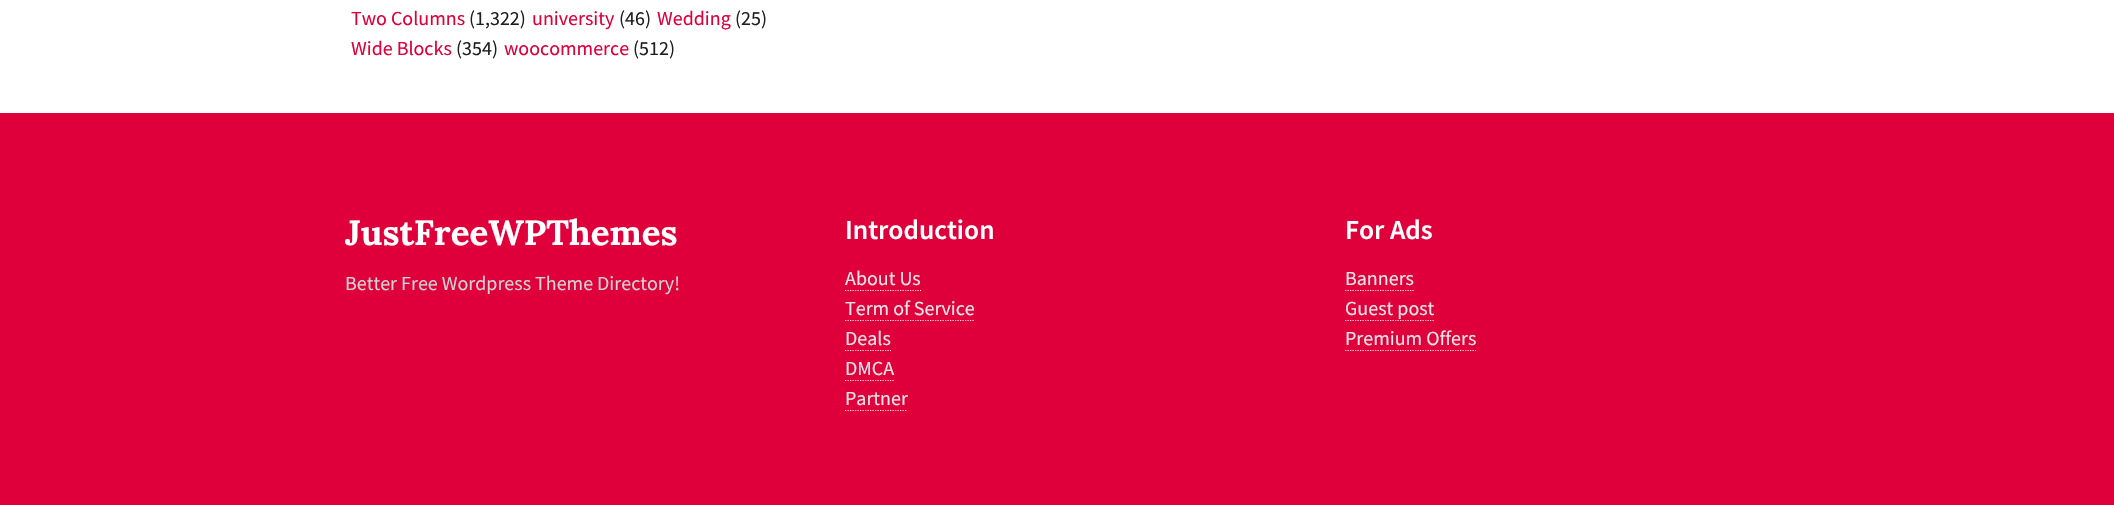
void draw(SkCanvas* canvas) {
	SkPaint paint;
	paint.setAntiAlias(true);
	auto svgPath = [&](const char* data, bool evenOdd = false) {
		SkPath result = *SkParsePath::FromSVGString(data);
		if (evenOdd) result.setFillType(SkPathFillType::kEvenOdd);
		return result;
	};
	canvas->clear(0xffffffff);
	SkFont f1(fontMgr->matchFamilyStyle("Source Sans Pro", SkFontStyle::Normal()), 20);
	f1.setSubpixel(true);
	paint.setColor(0xffdf003b);
	canvas->drawString("Two Columns", 351, 25, f1, paint);
	paint.setColor(0xff1f1f1f);
	canvas->drawString("(1,322)", 469, 25, f1, paint);
	paint.setColor(0xffdf003b);
	canvas->drawString("university", 532, 25, f1, paint);
	paint.setColor(0xff1f1f1f);
	canvas->drawString("(46)", 619, 25, f1, paint);
	paint.setColor(0xffdf003b);
	canvas->drawString("Wedding", 657, 25, f1, paint);
	paint.setColor(0xff1f1f1f);
	canvas->drawString("(25)", 735, 25, f1, paint);
	paint.setColor(0xffdf003b);
	canvas->drawString("Wide Blocks", 351, 55, f1, paint);
	paint.setColor(0xff1f1f1f);
	canvas->drawString("(354)", 456, 55, f1, paint);
	paint.setColor(0xffdf003b);
	canvas->drawString("woocommerce", 504, 55, f1, paint);
	paint.setColor(0xff1f1f1f);
	canvas->drawString("(512)", 633, 55, f1, paint);
	paint.setColor(0xffdf003b);
	canvas->drawRect(SkRect::MakeXYWH(0, 113, 2114, 392), paint);
	SkFont f2(fontMgr->matchFamilyStyle("Lora", SkFontStyle::Bold()), 35);
	f2.setSubpixel(true);
	paint.setColor(0xffffffff);
	canvas->drawString("JustFreeWPThemes", 345, 245, f2, paint);
	paint.setColor(0xffd4d4d4);
	canvas->drawString("Better Free Wordpress Theme Directory!", 345, 290, f1, paint);
	SkFont f3(fontMgr->matchFamilyStyle("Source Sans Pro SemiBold", SkFontStyle(600, SkFontStyle::kNormal_Width, SkFontStyle::kUpright_Slant)), 27.5);
	f3.setSubpixel(true);
	paint.setColor(0xffffffff);
	canvas->drawString("Introduction", 845, 239, f3, paint);
	paint.setColor(0xffe6e6e6);
	canvas->drawString("About Us", 845, 285, f1, paint);
	paint.setStroke(true);
	paint.setStrokeWidth(1.2);
	paint.setPathEffect(SkDashPathEffect::Make({{1.25f, 1.25f}}, 0));
	canvas->drawPath(svgPath("M845 290.5H921"), paint);
	paint.setPathEffect(nullptr);
	paint.setStroke(false);
	canvas->drawString("Term of Service", 845, 315, f1, paint);
	paint.setStroke(true);
	paint.setPathEffect(SkDashPathEffect::Make({{1.25f, 1.25f}}, 0));
	canvas->drawPath(svgPath("M845 320.5H975"), paint);
	paint.setPathEffect(nullptr);
	paint.setStroke(false);
	canvas->drawString("Deals", 845, 345, f1, paint);
	paint.setStroke(true);
	paint.setPathEffect(SkDashPathEffect::Make({{1.25f, 1.25f}}, 0));
	canvas->drawPath(svgPath("M845 350.5H891"), paint);
	paint.setPathEffect(nullptr);
	paint.setStroke(false);
	canvas->drawString("DMCA", 845, 375, f1, paint);
	paint.setStroke(true);
	paint.setPathEffect(SkDashPathEffect::Make({{1.25f, 1.25f}}, 0));
	canvas->drawPath(svgPath("M845 380.5H894"), paint);
	paint.setPathEffect(nullptr);
	paint.setStroke(false);
	canvas->drawString("Partner", 845, 405, f1, paint);
	paint.setStroke(true);
	paint.setPathEffect(SkDashPathEffect::Make({{1.25f, 1.25f}}, 0));
	canvas->drawPath(svgPath("M845 410.5H907.5"), paint);
	paint.setPathEffect(nullptr);
	paint.setStroke(false);
	paint.setColor(0xffffffff);
	canvas->drawString("For Ads", 1345, 239, f3, paint);
	paint.setColor(0xffe6e6e6);
	canvas->drawString("Banners", 1345, 285, f1, paint);
	paint.setStroke(true);
	paint.setPathEffect(SkDashPathEffect::Make({{1.25f, 1.25f}}, 0));
	canvas->drawPath(svgPath("M1345 290.5H1414"), paint);
	paint.setPathEffect(nullptr);
	paint.setPathEffect(SkDashPathEffect::Make({{1.25f, 1.25f}}, 0));
	canvas->drawPath(svgPath("M1345 320.5H1435"), paint);
	paint.setPathEffect(nullptr);
	paint.setStroke(false);
	canvas->drawString("Guest post", 1345, 315, f1, paint);
	canvas->drawString("Premium Offers", 1345, 345, f1, paint);
	paint.setStroke(true);
	paint.setPathEffect(SkDashPathEffect::Make({{1.25f, 1.25f}}, 0));
	canvas->drawPath(svgPath("M1345 350.5H1476"), paint);
	paint.setPathEffect(nullptr);
}
